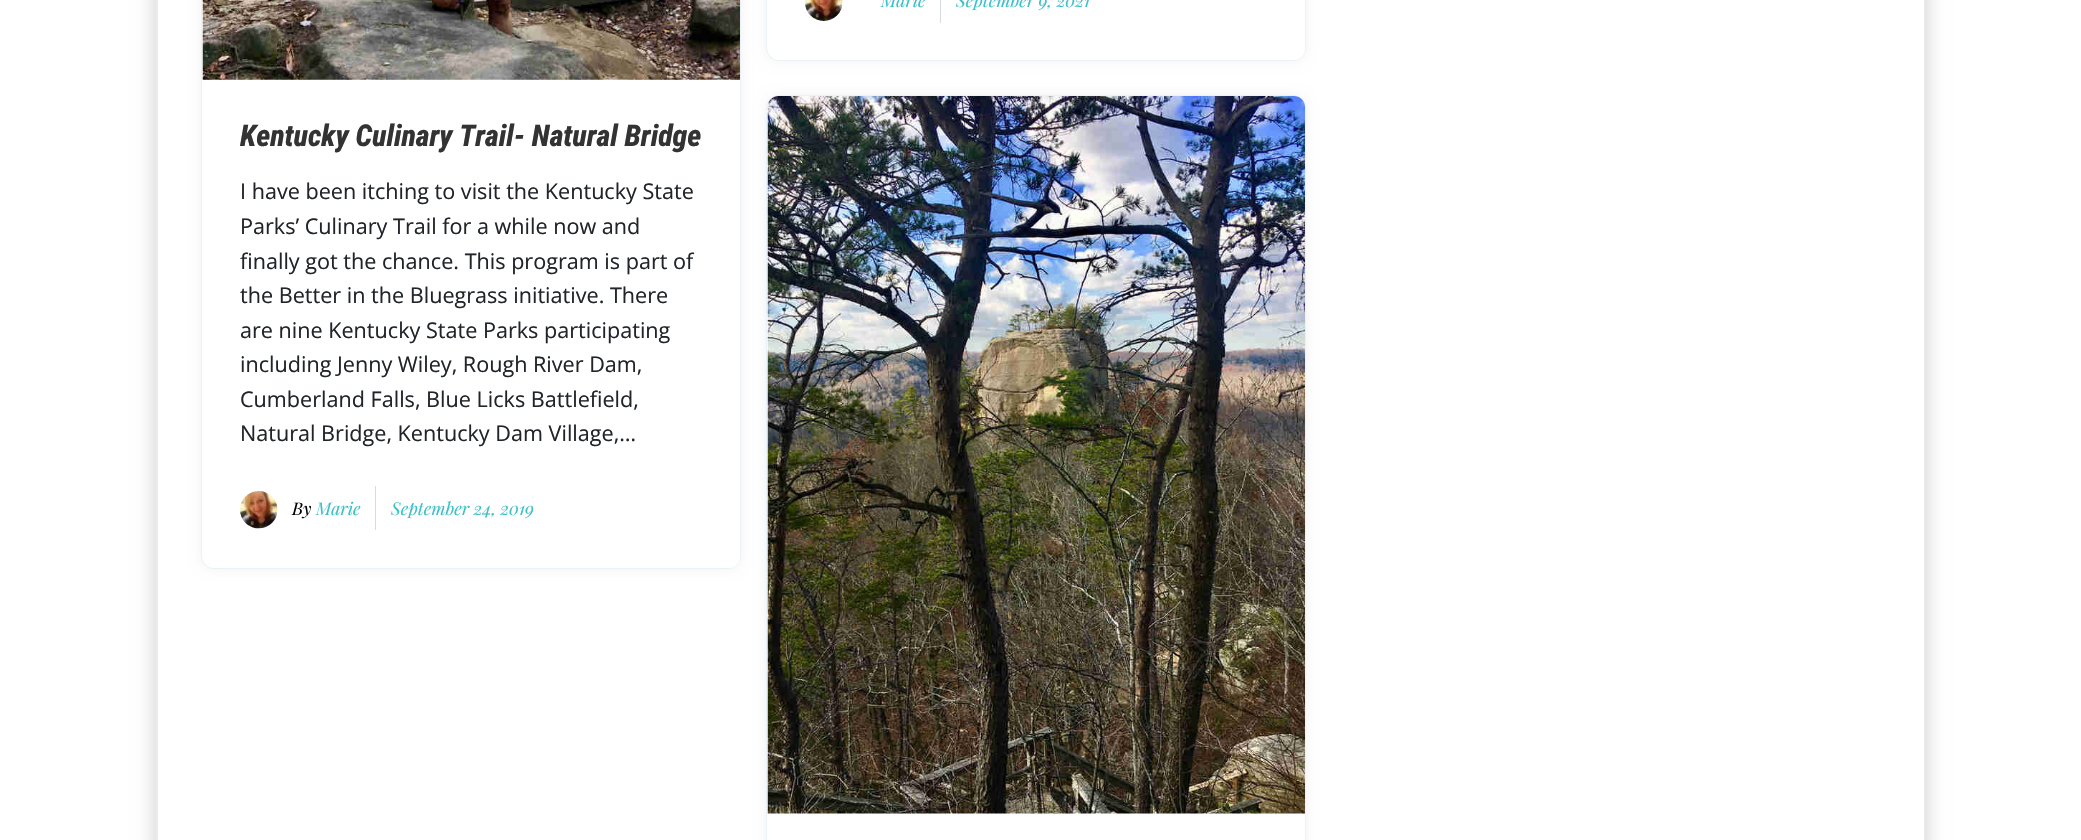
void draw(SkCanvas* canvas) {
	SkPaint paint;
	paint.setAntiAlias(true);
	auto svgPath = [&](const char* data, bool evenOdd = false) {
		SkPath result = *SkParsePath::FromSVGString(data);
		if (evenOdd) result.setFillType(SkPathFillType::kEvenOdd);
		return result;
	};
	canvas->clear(0xffffffff);
	paint.setColor(0x33000000);
	paint.setMaskFilter(SkMaskFilter::MakeBlur(kNormal_SkBlurStyle, 9.5));
	canvas->drawRect(SkRect::MakeXYWH(156, -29, 1769, 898), paint);
	paint.setMaskFilter(nullptr);
	paint.setColor(0xffffffff);
	canvas->drawRect(SkRect::MakeXYWH(158, 0, 1766, 840), paint);
	paint.setColor(0xffebebeb);
	canvas->drawPath(svgPath("M1925-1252V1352H1924V-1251Z"), paint);
	canvas->drawPath(svgPath("M156 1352V-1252L158-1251V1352Z"), paint);
	paint.setColor(0x0d000000);
	paint.setMaskFilter(SkMaskFilter::MakeBlur(kNormal_SkBlurStyle, 6));
	canvas->drawRoundRect(SkRect::MakeXYWH(766, -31, 540, 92), 13, 13, paint);
	paint.setMaskFilter(nullptr);
	paint.setColor(0xffffffff);
	canvas->drawRoundRect(SkRect::MakeXYWH(766.5, -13.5, 539, 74), 12.5, 12.5, paint);
	paint.setStroke(true);
	paint.setStrokeWidth(1);
	paint.setColor(0xffebf2f6);
	canvas->drawRoundRect(SkRect::MakeXYWH(766.5, -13.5, 539, 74), 12.5, 12.5, paint);
	paint.setStroke(false);
	paint.setColor(0xffffffff);
	canvas->drawPath(svgPath("M768-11H1305V49C1305 55 1300 60 1294 60H779C773 60 768 55 768 49Z"), paint);
	canvas->drawImageRect(SkImages::DeferredFromEncodedData(SkData::MakeFromFileName("img1.png")), SkRect::MakeXYWH(805, 0, 38, 21), SkSamplingOptions());
	SkFont f1(fontMgr->matchFamilyStyle("Playfair Display", SkFontStyle::Italic()), 17.5);
	f1.setSubpixel(true);
	paint.setColor(0xff3ac0c7);
	canvas->drawString("Marie", 881, 7, f1, paint);
	paint.setColor(0xffd5dbde);
	canvas->drawRect(SkRect::MakeXYWH(940, 0, 1, 23), paint);
	paint.setColor(0xff3ac0c7);
	canvas->drawString("September 9, 2021", 956, 7, f1, paint);
	paint.setColor(0x0d000000);
	paint.setMaskFilter(SkMaskFilter::MakeBlur(kNormal_SkBlurStyle, 6));
	canvas->drawRoundRect(SkRect::MakeXYWH(201, -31, 540, 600), 13, 13, paint);
	paint.setMaskFilter(nullptr);
	paint.setColor(0xffffffff);
	canvas->drawRoundRect(SkRect::MakeXYWH(201.5, -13.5, 539, 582), 12.5, 12.5, paint);
	paint.setStroke(true);
	paint.setColor(0xffebf2f6);
	canvas->drawRoundRect(SkRect::MakeXYWH(201.5, -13.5, 539, 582), 12.5, 12.5, paint);
	canvas->drawImageRect(SkImages::DeferredFromEncodedData(SkData::MakeFromFileName("img2.png")), SkRect::MakeXYWH(202, 0, 538, 80), SkSamplingOptions());
	paint.setStroke(false);
	paint.setColor(0xffffffff);
	canvas->drawPath(svgPath("M203 80H740V557C740 563 735 568 729 568H214C208 568 203 563 203 557Z"), paint);
	SkFont f2(fontMgr->matchFamilyStyle("Roboto Condensed", SkFontStyle(800, SkFontStyle::kNormal_Width, SkFontStyle::kItalic_Slant)), 30);
	f2.setSubpixel(true);
	paint.setColor(0xff333333);
	canvas->drawString("Kentucky Culinary Trail- Natural Bridge", 240, 146, f2, paint);
	SkFont f3(fontMgr->matchFamilyStyle("Open Sans", SkFontStyle::Normal()), 21.6);
	f3.setSubpixel(true);
	paint.setColor(0xff212529);
	canvas->drawString("I have been itching to visit the Kentucky State", 240, 199, f3, paint);
	canvas->drawString("Parks’ Culinary Trail for a while now and", 240, 234, f3, paint);
	canvas->drawString("finally got the chance. This program is part of", 240, 269, f3, paint);
	canvas->drawString("the Better in the Bluegrass initiative. There", 240, 303, f3, paint);
	canvas->drawString("are nine Kentucky State Parks participating", 240, 338, f3, paint);
	canvas->drawString("including Jenny Wiley, Rough River Dam,", 240, 372, f3, paint);
	canvas->drawString("Cumberland Falls, Blue Licks Battlefield,", 240, 407, f3, paint);
	canvas->drawString("Natural Bridge, Kentucky Dam Village,…", 240, 441, f3, paint);
	canvas->drawImageRect(SkImages::DeferredFromEncodedData(SkData::MakeFromFileName("img3.png")), SkRect::MakeXYWH(240, 491, 38, 38), SkSamplingOptions());
	paint.setColor(0xff000000);
	canvas->drawString("By", 292, 515, f1, paint);
	paint.setColor(0xff3ac0c7);
	canvas->drawString("Marie", 316, 515, f1, paint);
	paint.setColor(0xffd5dbde);
	canvas->drawRect(SkRect::MakeXYWH(375, 486, 1, 44), paint);
	paint.setColor(0xff3ac0c7);
	canvas->drawString("September 24, 2019", 391, 515, f1, paint);
	paint.setColor(0x0d000000);
	paint.setMaskFilter(SkMaskFilter::MakeBlur(kNormal_SkBlurStyle, 6));
	canvas->drawRoundRect(SkRect::MakeXYWH(766, 95, 540, 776), 13, 13, paint);
	paint.setMaskFilter(nullptr);
	paint.setColor(0xffffffff);
	canvas->drawRoundRect(SkRect::MakeXYWH(766.5, 95.5, 539, 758), 12.5, 12.5, paint);
	paint.setStroke(true);
	paint.setColor(0xffebf2f6);
	canvas->drawRoundRect(SkRect::MakeXYWH(766.5, 95.5, 539, 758), 12.5, 12.5, paint);
	canvas->drawImageRect(SkImages::DeferredFromEncodedData(SkData::MakeFromFileName("img4.png")), SkRect::MakeXYWH(767, 96, 538, 718), SkSamplingOptions());
}
